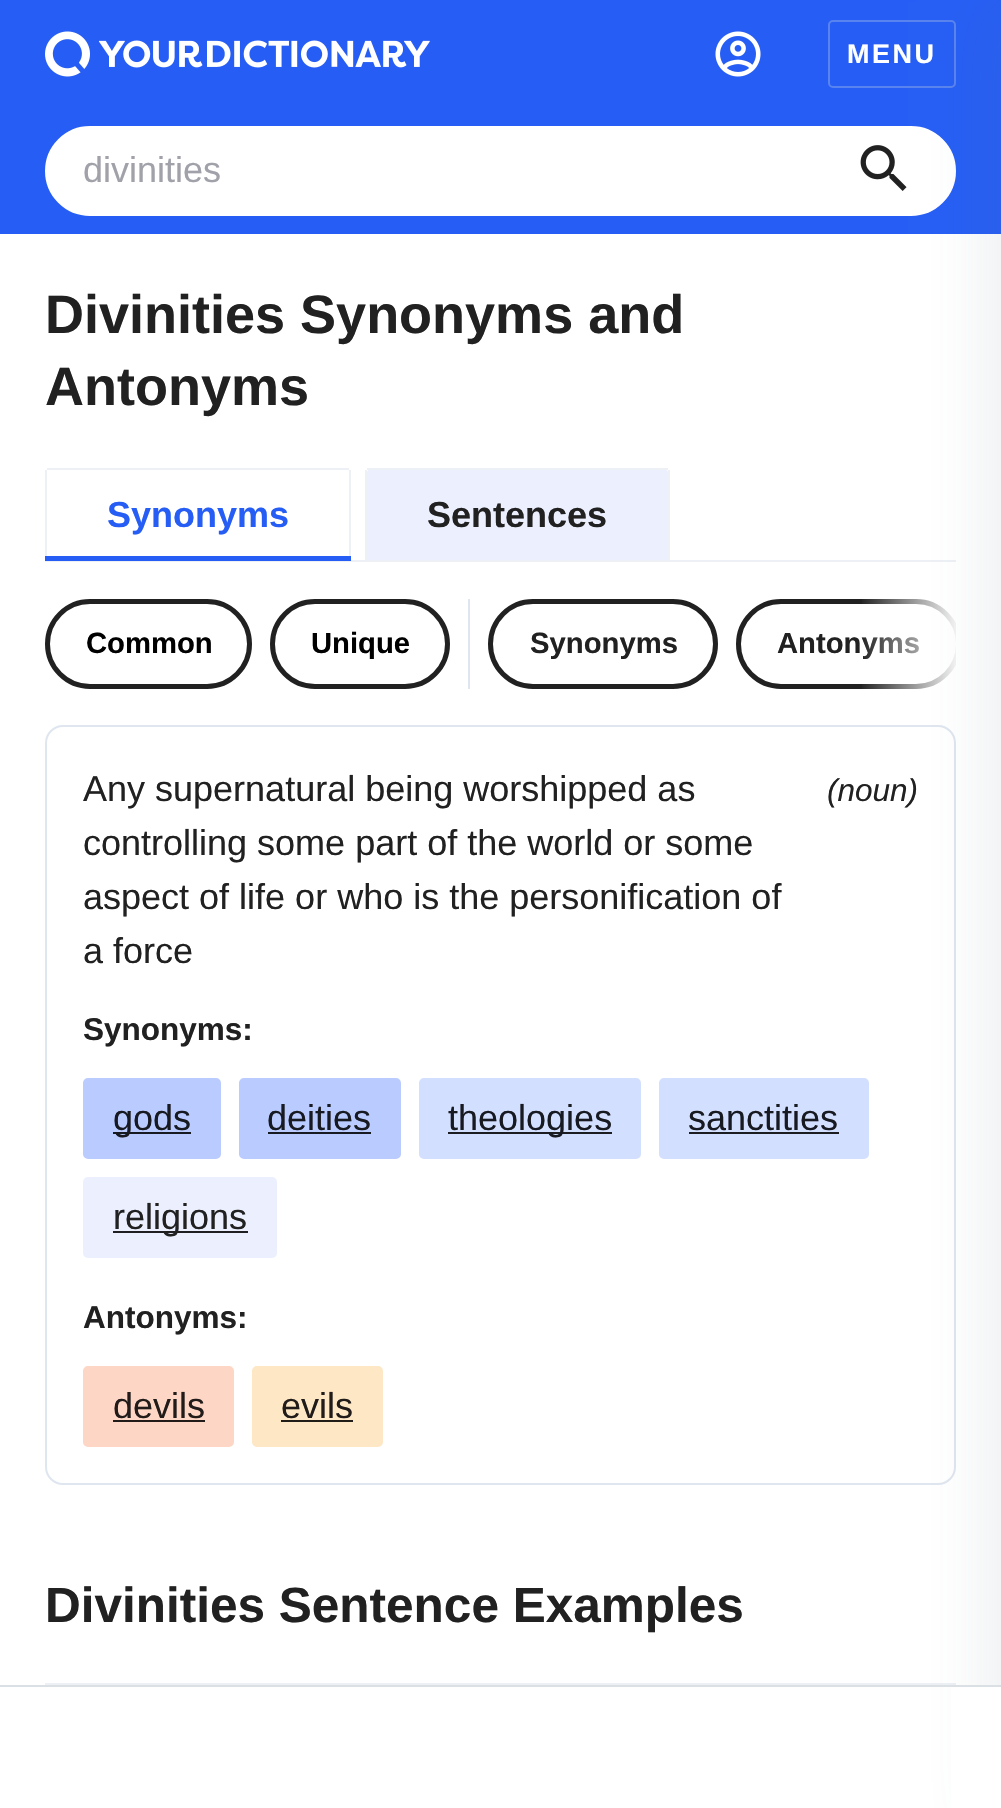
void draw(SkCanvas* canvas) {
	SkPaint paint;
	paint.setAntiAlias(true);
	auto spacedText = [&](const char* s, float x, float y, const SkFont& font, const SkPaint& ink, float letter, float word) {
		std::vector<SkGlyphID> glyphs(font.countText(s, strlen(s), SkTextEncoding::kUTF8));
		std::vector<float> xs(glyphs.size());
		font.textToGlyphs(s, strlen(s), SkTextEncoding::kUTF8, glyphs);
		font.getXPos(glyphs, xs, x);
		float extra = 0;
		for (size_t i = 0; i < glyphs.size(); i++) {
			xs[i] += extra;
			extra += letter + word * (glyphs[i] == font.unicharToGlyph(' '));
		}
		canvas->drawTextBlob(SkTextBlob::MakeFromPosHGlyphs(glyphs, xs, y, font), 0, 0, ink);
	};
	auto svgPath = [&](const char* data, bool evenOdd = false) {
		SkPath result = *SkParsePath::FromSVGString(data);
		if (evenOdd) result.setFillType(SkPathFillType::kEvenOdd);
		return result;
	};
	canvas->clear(0xffffffff);
	paint.setColor(0xff265ef5);
	canvas->drawRect(SkRect::MakeXYWH(0, 0, 1001, 234), paint);
	canvas->drawImageRect(SkImages::DeferredFromEncodedData(SkData::MakeFromFileName("img1.png")), SkRect::MakeXYWH(45, 31, 385, 46), SkSamplingOptions());
	canvas->drawImageRect(SkImages::DeferredFromEncodedData(SkData::MakeFromFileName("img2.png")), SkRect::MakeXYWH(715, 31, 46, 46), SkSamplingOptions());
	paint.setStroke(true);
	paint.setStrokeWidth(2);
	paint.setColor(0xff5983ee);
	canvas->drawRoundRect(SkRect::MakeXYWH(829, 21, 126, 66), 4, 4, paint);
	paint.setStroke(false);
	paint.setColor(0xffffffff);
	canvas->drawRoundRect(SkRect::MakeXYWH(47.5, 128.5, 906, 85), 42.5, 42.5, paint);
	paint.setStroke(true);
	paint.setStrokeWidth(5);
	canvas->drawRoundRect(SkRect::MakeXYWH(47.5, 128.5, 906, 85), 42.5, 42.5, paint);
	canvas->drawImageRect(SkImages::DeferredFromEncodedData(SkData::MakeFromFileName("img3.png")), SkRect::MakeXYWH(860, 145, 47, 46), SkSamplingOptions());
	paint.setStroke(false);
	paint.setColor(0xffedf1f6);
	canvas->drawRect(SkRect::MakeXYWH(45, 560, 911, 2), paint);
	canvas->save();
	canvas->clipRect(SkRect::MakeXYWH(45, 599, 911, 90));
	paint.setStroke(true);
	paint.setColor(0xff212121);
	canvas->drawRoundRect(SkRect::MakeXYWH(738.5, 601.5, 220, 85), 42.5, 42.5, paint);
	canvas->restore();
	SkFont f1(fontMgr->matchFamilyStyle("Liberation Sans", SkFontStyle::Bold()), 29.25);
	f1.setSubpixel(true);
	paint.setStroke(false);
	canvas->drawString("Antonyms", 777, 653, f1, paint);
	{
		const SkColor colors[] = {0x00ffffff, 0xffffffff};
		const float stops[] = {0, 1};
		const SkPoint ends[] = {{860, 641}, {961, 641}};
		paint.setShader(SkGradientShader::MakeLinear(ends, colors, stops, 2, SkTileMode::kClamp));
		paint.setAlpha(255);
	}
	canvas->drawRect(SkRect::MakeXYWH(862, 599, 94, 90), paint);
	paint.setStroke(true);
	paint.setStrokeWidth(2);
	paint.setShader(nullptr);
	paint.setColor(0xffdfe6ef);
	canvas->drawRoundRect(SkRect::MakeXYWH(46, 726, 909, 758), 17, 17, paint);
	paint.setStroke(false);
	paint.setColor(0xffedf1f6);
	canvas->drawRect(SkRect::MakeXYWH(45, 1683, 911, 2), paint);
	paint.setColor(0x1f546e7a);
	paint.setMaskFilter(SkMaskFilter::MakeBlur(kNormal_SkBlurStyle, 34));
	canvas->drawRect(SkRect::MakeXYWH(990, 2, 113, 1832), paint);
	paint.setMaskFilter(nullptr);
	SkFont f2(fontMgr->matchFamilyStyle("Liberation Sans", SkFontStyle::Bold()), 27);
	f2.setSubpixel(true);
	paint.setColor(0xffffffff);
	spacedText("MENU", 847, 63, f2, paint, 2.5, 0);
	SkFont f3(fontMgr->matchFamilyStyle("Liberation Sans", SkFontStyle::Normal()), 36);
	f3.setSubpixel(true);
	paint.setColor(0xffa1a1aa);
	canvas->drawString("divinities", 83, 182, f3, paint);
	SkFont f4(fontMgr->matchFamilyStyle("Liberation Sans", SkFontStyle::Bold()), 54);
	f4.setSubpixel(true);
	paint.setColor(0xff212121);
	canvas->drawString("Divinities Synonyms and", 45, 333, f4, paint);
	canvas->drawString("Antonyms", 45, 405, f4, paint);
	paint.setColor(0xffedf1f6);
	canvas->drawRect(SkRect::MakeXYWH(47, 468, 302, 2), paint);
	canvas->drawRect(SkRect::MakeXYWH(349, 470, 2, 90), paint);
	canvas->drawRect(SkRect::MakeXYWH(45, 470, 2, 90), paint);
	SkFont f5(fontMgr->matchFamilyStyle("Liberation Sans", SkFontStyle::Bold()), 36);
	f5.setSubpixel(true);
	paint.setColor(0xff265ef5);
	canvas->drawString("Synonyms", 107, 527, f5, paint);
	canvas->drawRect(SkRect::MakeXYWH(45, 556, 306, 5), paint);
	paint.setColor(0xffecf0fe);
	canvas->drawPath(svgPath("M369 470H666C667 470 668 471 668 472V560H367V472C367 471 368 470 369 470Z"), paint);
	paint.setColor(0xffedf1f6);
	canvas->drawRect(SkRect::MakeXYWH(367, 468, 301, 2), paint);
	canvas->drawRect(SkRect::MakeXYWH(668, 470, 2, 90), paint);
	canvas->drawRect(SkRect::MakeXYWH(365, 470, 2, 90), paint);
	paint.setColor(0xff212121);
	canvas->drawString("Sentences", 427, 527, f5, paint);
	paint.setStroke(true);
	paint.setStrokeWidth(5);
	canvas->drawRoundRect(SkRect::MakeXYWH(47.5, 601.5, 202, 85), 42.5, 42.5, paint);
	paint.setStroke(false);
	paint.setColor(0xff000000);
	canvas->drawString("Common", 86, 653, f1, paint);
	paint.setStroke(true);
	paint.setColor(0xff212121);
	canvas->drawRoundRect(SkRect::MakeXYWH(272.5, 601.5, 175, 85), 42.5, 42.5, paint);
	paint.setStroke(false);
	paint.setColor(0xff000000);
	canvas->drawString("Unique", 311, 653, f1, paint);
	paint.setColor(0xffdfe6ef);
	canvas->drawRect(SkRect::MakeXYWH(468, 599, 2, 90), paint);
	paint.setStroke(true);
	paint.setColor(0xff212121);
	canvas->drawRoundRect(SkRect::MakeXYWH(490.5, 601.5, 225, 85), 42.5, 42.5, paint);
	paint.setStroke(false);
	canvas->drawString("Synonyms", 530, 653, f1, paint);
	canvas->drawString("Any supernatural being worshipped as", 83, 801, f3, paint);
	canvas->drawString("controlling some part of the world or some", 83, 855, f3, paint);
	canvas->drawString("aspect of life or who is the personification of", 83, 909, f3, paint);
	canvas->drawString("a force", 83, 963, f3, paint);
	SkFont f6(fontMgr->matchFamilyStyle("Liberation Sans", SkFontStyle::Italic()), 31.5);
	f6.setSubpixel(true);
	canvas->drawString("(noun)", 827, 801, f6, paint);
	SkFont f7(fontMgr->matchFamilyStyle("Liberation Sans", SkFontStyle::Bold()), 31.5);
	f7.setSubpixel(true);
	canvas->drawString("Synonyms:", 83, 1040, f7, paint);
	paint.setColor(0xffbacbff);
	canvas->drawRoundRect(SkRect::MakeXYWH(84, 1079, 136, 79), 4, 4, paint);
	paint.setStroke(true);
	paint.setStrokeWidth(2);
	canvas->drawRoundRect(SkRect::MakeXYWH(84, 1079, 136, 79), 4, 4, paint);
	paint.setStroke(false);
	paint.setColor(0xff181a21);
	canvas->drawRect(SkRect::MakeXYWH(113, 1132, 78, 2), paint);
	canvas->drawString("gods", 113, 1130, f3, paint);
	paint.setColor(0xffbacbff);
	canvas->drawRoundRect(SkRect::MakeXYWH(240, 1079, 160, 79), 4, 4, paint);
	paint.setStroke(true);
	canvas->drawRoundRect(SkRect::MakeXYWH(240, 1079, 160, 79), 4, 4, paint);
	paint.setStroke(false);
	paint.setColor(0xff181a21);
	canvas->drawString("deities", 267, 1130, f3, paint);
	canvas->drawRect(SkRect::MakeXYWH(268, 1132, 103, 2), paint);
	paint.setColor(0xffd3dfff);
	canvas->drawRoundRect(SkRect::MakeXYWH(420, 1079, 220, 79), 4, 4, paint);
	paint.setStroke(true);
	canvas->drawRoundRect(SkRect::MakeXYWH(420, 1079, 220, 79), 4, 4, paint);
	paint.setStroke(false);
	paint.setColor(0xff1b1d21);
	canvas->drawRect(SkRect::MakeXYWH(448, 1132, 164, 2), paint);
	paint.setColor(0xff181a21);
	canvas->drawString("theologies", 448, 1130, f3, paint);
	paint.setColor(0xffd3dfff);
	canvas->drawRoundRect(SkRect::MakeXYWH(660, 1079, 208, 79), 4, 4, paint);
	paint.setStroke(true);
	canvas->drawRoundRect(SkRect::MakeXYWH(660, 1079, 208, 79), 4, 4, paint);
	paint.setStroke(false);
	paint.setColor(0xff181a21);
	canvas->drawString("sanctities", 688, 1130, f3, paint);
	paint.setColor(0xff1b1d21);
	canvas->drawRect(SkRect::MakeXYWH(689, 1132, 150, 2), paint);
	paint.setColor(0xffecf0fe);
	canvas->drawRoundRect(SkRect::MakeXYWH(84, 1178, 192, 79), 4, 4, paint);
	paint.setStroke(true);
	canvas->drawRoundRect(SkRect::MakeXYWH(84, 1178, 192, 79), 4, 4, paint);
	paint.setStroke(false);
	paint.setColor(0xff1f1f21);
	canvas->drawRect(SkRect::MakeXYWH(113, 1231, 135, 2), paint);
	paint.setColor(0xff212121);
	canvas->drawString("religions", 113, 1229, f3, paint);
	canvas->drawString("Antonyms:", 83, 1328, f7, paint);
	paint.setColor(0xfffdd6c5);
	canvas->drawRoundRect(SkRect::MakeXYWH(84, 1367, 149, 79), 4, 4, paint);
	paint.setStroke(true);
	canvas->drawRoundRect(SkRect::MakeXYWH(84, 1367, 149, 79), 4, 4, paint);
	paint.setStroke(false);
	paint.setColor(0xff211c1a);
	canvas->drawString("devils", 113, 1418, f3, paint);
	canvas->drawRect(SkRect::MakeXYWH(113, 1420, 92, 2), paint);
	paint.setColor(0xfffde7c5);
	canvas->drawRoundRect(SkRect::MakeXYWH(253, 1367, 129, 79), 4, 4, paint);
	paint.setStroke(true);
	canvas->drawRoundRect(SkRect::MakeXYWH(253, 1367, 129, 79), 4, 4, paint);
	paint.setStroke(false);
	paint.setColor(0xff211c1a);
	canvas->drawString("evils", 281, 1418, f3, paint);
	paint.setColor(0xff211e1a);
	canvas->drawRect(SkRect::MakeXYWH(281, 1420, 72, 2), paint);
	SkFont f8(fontMgr->matchFamilyStyle("Liberation Sans", SkFontStyle::Bold()), 49.5);
	f8.setSubpixel(true);
	paint.setColor(0xff212121);
	canvas->drawString("Divinities Sentence Examples", 45, 1622, f8, paint);
	paint.setColor(0xffffffff);
	canvas->drawRect(SkRect::MakeXYWH(951, 1687, 50, 121), paint);
	paint.setColor(0xffdae0e3);
	canvas->drawRect(SkRect::MakeXYWH(0, 1685, 1001, 2), paint);
}
